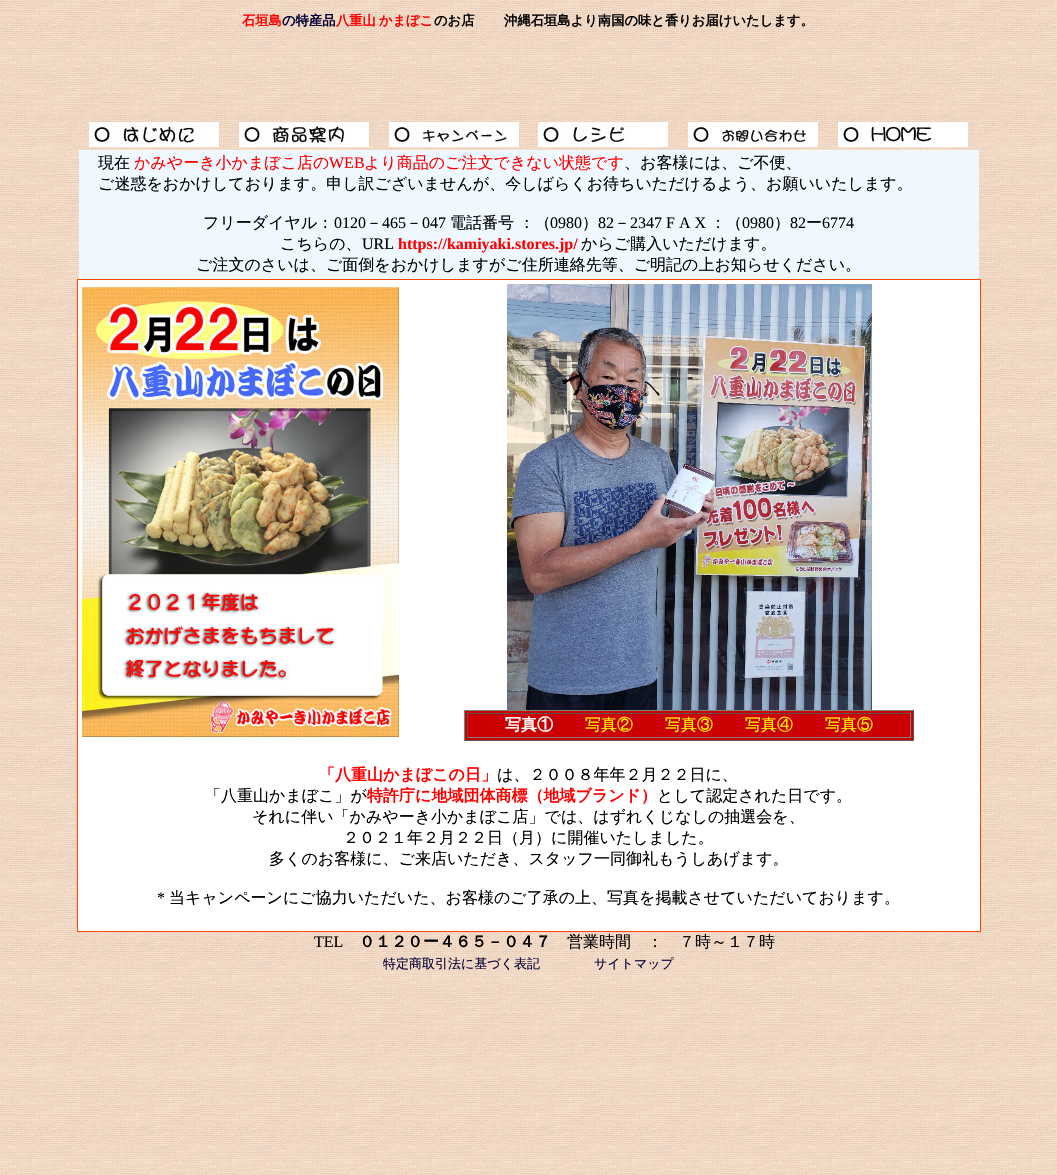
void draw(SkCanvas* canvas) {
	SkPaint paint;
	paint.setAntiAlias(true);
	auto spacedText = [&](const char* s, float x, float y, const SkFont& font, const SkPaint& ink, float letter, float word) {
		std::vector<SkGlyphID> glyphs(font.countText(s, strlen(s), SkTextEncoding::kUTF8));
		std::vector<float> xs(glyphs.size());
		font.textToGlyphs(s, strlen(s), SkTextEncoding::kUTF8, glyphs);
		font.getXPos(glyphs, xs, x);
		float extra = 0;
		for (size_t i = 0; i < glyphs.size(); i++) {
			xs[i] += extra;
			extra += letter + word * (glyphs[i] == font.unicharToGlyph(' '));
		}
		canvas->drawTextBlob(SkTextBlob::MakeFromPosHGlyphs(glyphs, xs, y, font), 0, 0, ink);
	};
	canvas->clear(0xffffffff);
	canvas->drawImageRect(SkImages::DeferredFromEncodedData(SkData::MakeFromFileName("img1.png")), SkRect::MakeXYWH(0, 0, 1057, 1175), SkSamplingOptions());
	SkFont f1(fontMgr->matchFamilyStyle("WenQuanYi Zen Hei", SkFontStyle::Bold()), 13.3);
	f1.setSubpixel(true);
	paint.setColor(0xffff0000);
	canvas->drawString("石垣島", 242, 25, f1, paint);
	paint.setColor(0xff000033);
	canvas->drawString("の特産品", 282, 25, f1, paint);
	paint.setColor(0xffff0000);
	spacedText("八重山 かまぼこ", 336, 25, f1, paint, 0, -1);
	paint.setColor(0xff000000);
	spacedText("のお店　　 沖縄石垣島より南国の味と香りお届けいたします。", 434, 25, f1, paint, 0, -1);
	canvas->drawImageRect(SkImages::DeferredFromEncodedData(SkData::MakeFromFileName("img2.png")), SkRect::MakeXYWH(89, 122, 130, 25), SkSamplingOptions());
	canvas->drawImageRect(SkImages::DeferredFromEncodedData(SkData::MakeFromFileName("img3.png")), SkRect::MakeXYWH(239, 122, 130, 25), SkSamplingOptions());
	canvas->drawImageRect(SkImages::DeferredFromEncodedData(SkData::MakeFromFileName("img4.png")), SkRect::MakeXYWH(389, 122, 130, 25), SkSamplingOptions());
	canvas->drawImageRect(SkImages::DeferredFromEncodedData(SkData::MakeFromFileName("img5.png")), SkRect::MakeXYWH(538, 122, 130, 25), SkSamplingOptions());
	canvas->drawImageRect(SkImages::DeferredFromEncodedData(SkData::MakeFromFileName("img6.png")), SkRect::MakeXYWH(688, 122, 130, 25), SkSamplingOptions());
	canvas->drawImageRect(SkImages::DeferredFromEncodedData(SkData::MakeFromFileName("img7.png")), SkRect::MakeXYWH(838, 122, 130, 25), SkSamplingOptions());
	paint.setColor(0xfff0f8ff);
	canvas->drawRect(SkRect::MakeXYWH(79, 150, 900, 129), paint);
	SkFont f2(fontMgr->matchFamilyStyle("WenQuanYi Zen Hei", SkFontStyle(500, SkFontStyle::kNormal_Width, SkFontStyle::kUpright_Slant)), 16);
	f2.setSubpixel(true);
	paint.setColor(0xff000000);
	canvas->drawString("現在", 98, 168, f2, paint);
	paint.setColor(0xffff0000);
	canvas->drawString("かみやーき小かまぼこ店の", 134, 168, f2, paint);
	SkFont f3(fontMgr->matchFamilyStyle("Liberation Serif", SkFontStyle::Normal()), 16);
	f3.setSubpixel(true);
	canvas->drawString("WEB", 329, 168, f3, paint);
	canvas->drawString("より商品のご注文できない状態です", 364, 168, f2, paint);
	paint.setColor(0xff000000);
	canvas->drawString("、お客様には、ご不便、", 624, 168, f2, paint);
	canvas->drawString("ご迷惑をおかけしております。申し訳ございませんが、今しばらくお待ちいただけるよう、お願いいたします。", 98, 189, f2, paint);
	canvas->drawString("フリーダイヤル：", 203, 228, f2, paint);
	canvas->drawString("0120", 334, 228, f3, paint);
	canvas->drawString("－", 366, 228, f2, paint);
	canvas->drawString("465", 382, 228, f3, paint);
	canvas->drawString("－", 406, 228, f2, paint);
	canvas->drawString("047", 422, 228, f3, paint);
	canvas->drawString("電話番号 ：（", 450, 228, f2, paint);
	canvas->drawString("0980", 550, 228, f3, paint);
	canvas->drawString("）", 582, 228, f2, paint);
	canvas->drawString("82", 598, 228, f3, paint);
	canvas->drawString("－", 614, 228, f2, paint);
	canvas->drawString("2347", 630, 228, f3, paint);
	canvas->drawString("F A X", 666, 228, f3, paint);
	canvas->drawString("：（", 710, 228, f2, paint);
	canvas->drawString("0980", 742, 228, f3, paint);
	canvas->drawString("）", 774, 228, f2, paint);
	canvas->drawString("82", 790, 228, f3, paint);
	canvas->drawString("ー", 806, 228, f2, paint);
	canvas->drawString("6774", 822, 228, f3, paint);
	canvas->drawString("こちらの、", 280, 249, f2, paint);
	canvas->drawString("URL", 362, 249, f3, paint);
	SkFont f4(fontMgr->matchFamilyStyle("Liberation Serif", SkFontStyle::Bold()), 16);
	f4.setSubpixel(true);
	paint.setColor(0xffff0000);
	canvas->drawString("https://kamiyaki.stores.jp/", 398, 249, f4, paint);
	paint.setColor(0xff000000);
	canvas->drawString("からご購入いただけます。", 581, 249, f2, paint);
	canvas->drawString("ご注文のさいは、ご面倒をおかけしますがご住所連絡先等、ご明記の上お知らせください。", 196, 270, f2, paint);
	paint.setColor(0xffff4500);
	canvas->drawRect(SkRect::MakeXYWH(77, 279, 904, 653), paint);
	paint.setColor(0xffffffff);
	canvas->drawRect(SkRect::MakeXYWH(78, 280, 902, 651), paint);
	canvas->drawImageRect(SkImages::DeferredFromEncodedData(SkData::MakeFromFileName("img8.png")), SkRect::MakeXYWH(82, 287, 317, 450), SkSamplingOptions());
	canvas->drawImageRect(SkImages::DeferredFromEncodedData(SkData::MakeFromFileName("img9.png")), SkRect::MakeXYWH(507, 284, 365, 426), SkSamplingOptions());
	paint.setColor(0xffcc0000);
	canvas->drawRect(SkRect::MakeXYWH(465, 711, 448, 29), paint);
	paint.setColor(0xff808080);
	canvas->drawRect(SkRect::MakeXYWH(464, 710, 450, 1), paint);
	paint.setColor(0xff555555);
	canvas->drawRect(SkRect::MakeXYWH(913, 710, 1, 31), paint);
	canvas->drawRect(SkRect::MakeXYWH(464, 740, 450, 1), paint);
	paint.setColor(0xff808080);
	canvas->drawRect(SkRect::MakeXYWH(464, 710, 1, 31), paint);
	paint.setColor(0xff555555);
	canvas->drawRect(SkRect::MakeXYWH(467, 713, 444, 1), paint);
	paint.setColor(0xff808080);
	canvas->drawRect(SkRect::MakeXYWH(910, 713, 1, 25), paint);
	canvas->drawRect(SkRect::MakeXYWH(467, 737, 444, 1), paint);
	paint.setColor(0xff555555);
	canvas->drawRect(SkRect::MakeXYWH(467, 713, 1, 25), paint);
	SkFont f5(fontMgr->matchFamilyStyle("WenQuanYi Zen Hei", SkFontStyle::Bold()), 16);
	f5.setSubpixel(true);
	paint.setColor(0xffffffff);
	canvas->drawString("写真①", 505, 730, f5, paint);
	paint.setColor(0xffffff00);
	canvas->drawString("写真②", 585, 730, f2, paint);
	canvas->drawString("写真③", 665, 730, f2, paint);
	canvas->drawString("写真④", 745, 730, f2, paint);
	canvas->drawString("写真⑤", 825, 730, f2, paint);
	paint.setColor(0xffff0000);
	canvas->drawString("「八重山かまぼこの日」", 319, 780, f5, paint);
	paint.setColor(0xff000000);
	canvas->drawString("は、２００８年年２月２２日に、", 497, 780, f2, paint);
	canvas->drawString("「八重山かまぼこ」が", 205, 801, f2, paint);
	paint.setColor(0xffff0000);
	canvas->drawString("特許庁に地域団体商標（地域ブランド）", 367, 801, f5, paint);
	paint.setColor(0xff000000);
	canvas->drawString("として認定された日です。", 657, 801, f2, paint);
	canvas->drawString("それに伴い「かみやーき小かまぼこ店」では、はずれくじなしの抽選会を、", 252, 822, f2, paint);
	canvas->drawString("２０２１年２月２２日（月）に開催いたしました。", 343, 843, f2, paint);
	canvas->drawString("多くのお客様に、ご来店いただき、スタッフ一同御礼もうしあげます。", 269, 864, f2, paint);
	canvas->drawString("*", 157, 903, f3, paint);
	canvas->drawString("当キャンペーンにご協力いただいた、お客様のご了承の上、写真を掲載させていただいております。", 169, 903, f2, paint);
	canvas->drawString("TEL", 314, 947, f3, paint);
	canvas->drawString("０１２０ー４６５－０４７", 359, 947, f5, paint);
	canvas->drawString("営業時間　：　７時～１７時", 567, 947, f2, paint);
	SkFont f6(fontMgr->matchFamilyStyle("WenQuanYi Zen Hei", SkFontStyle(500, SkFontStyle::kNormal_Width, SkFontStyle::kUpright_Slant)), 13);
	f6.setSubpixel(true);
	paint.setColor(0xff000033);
	canvas->drawString("特定商取引法に基づく表記", 383, 968, f6, paint);
	canvas->drawString("サイトマップ", 594, 968, f6, paint);
}
